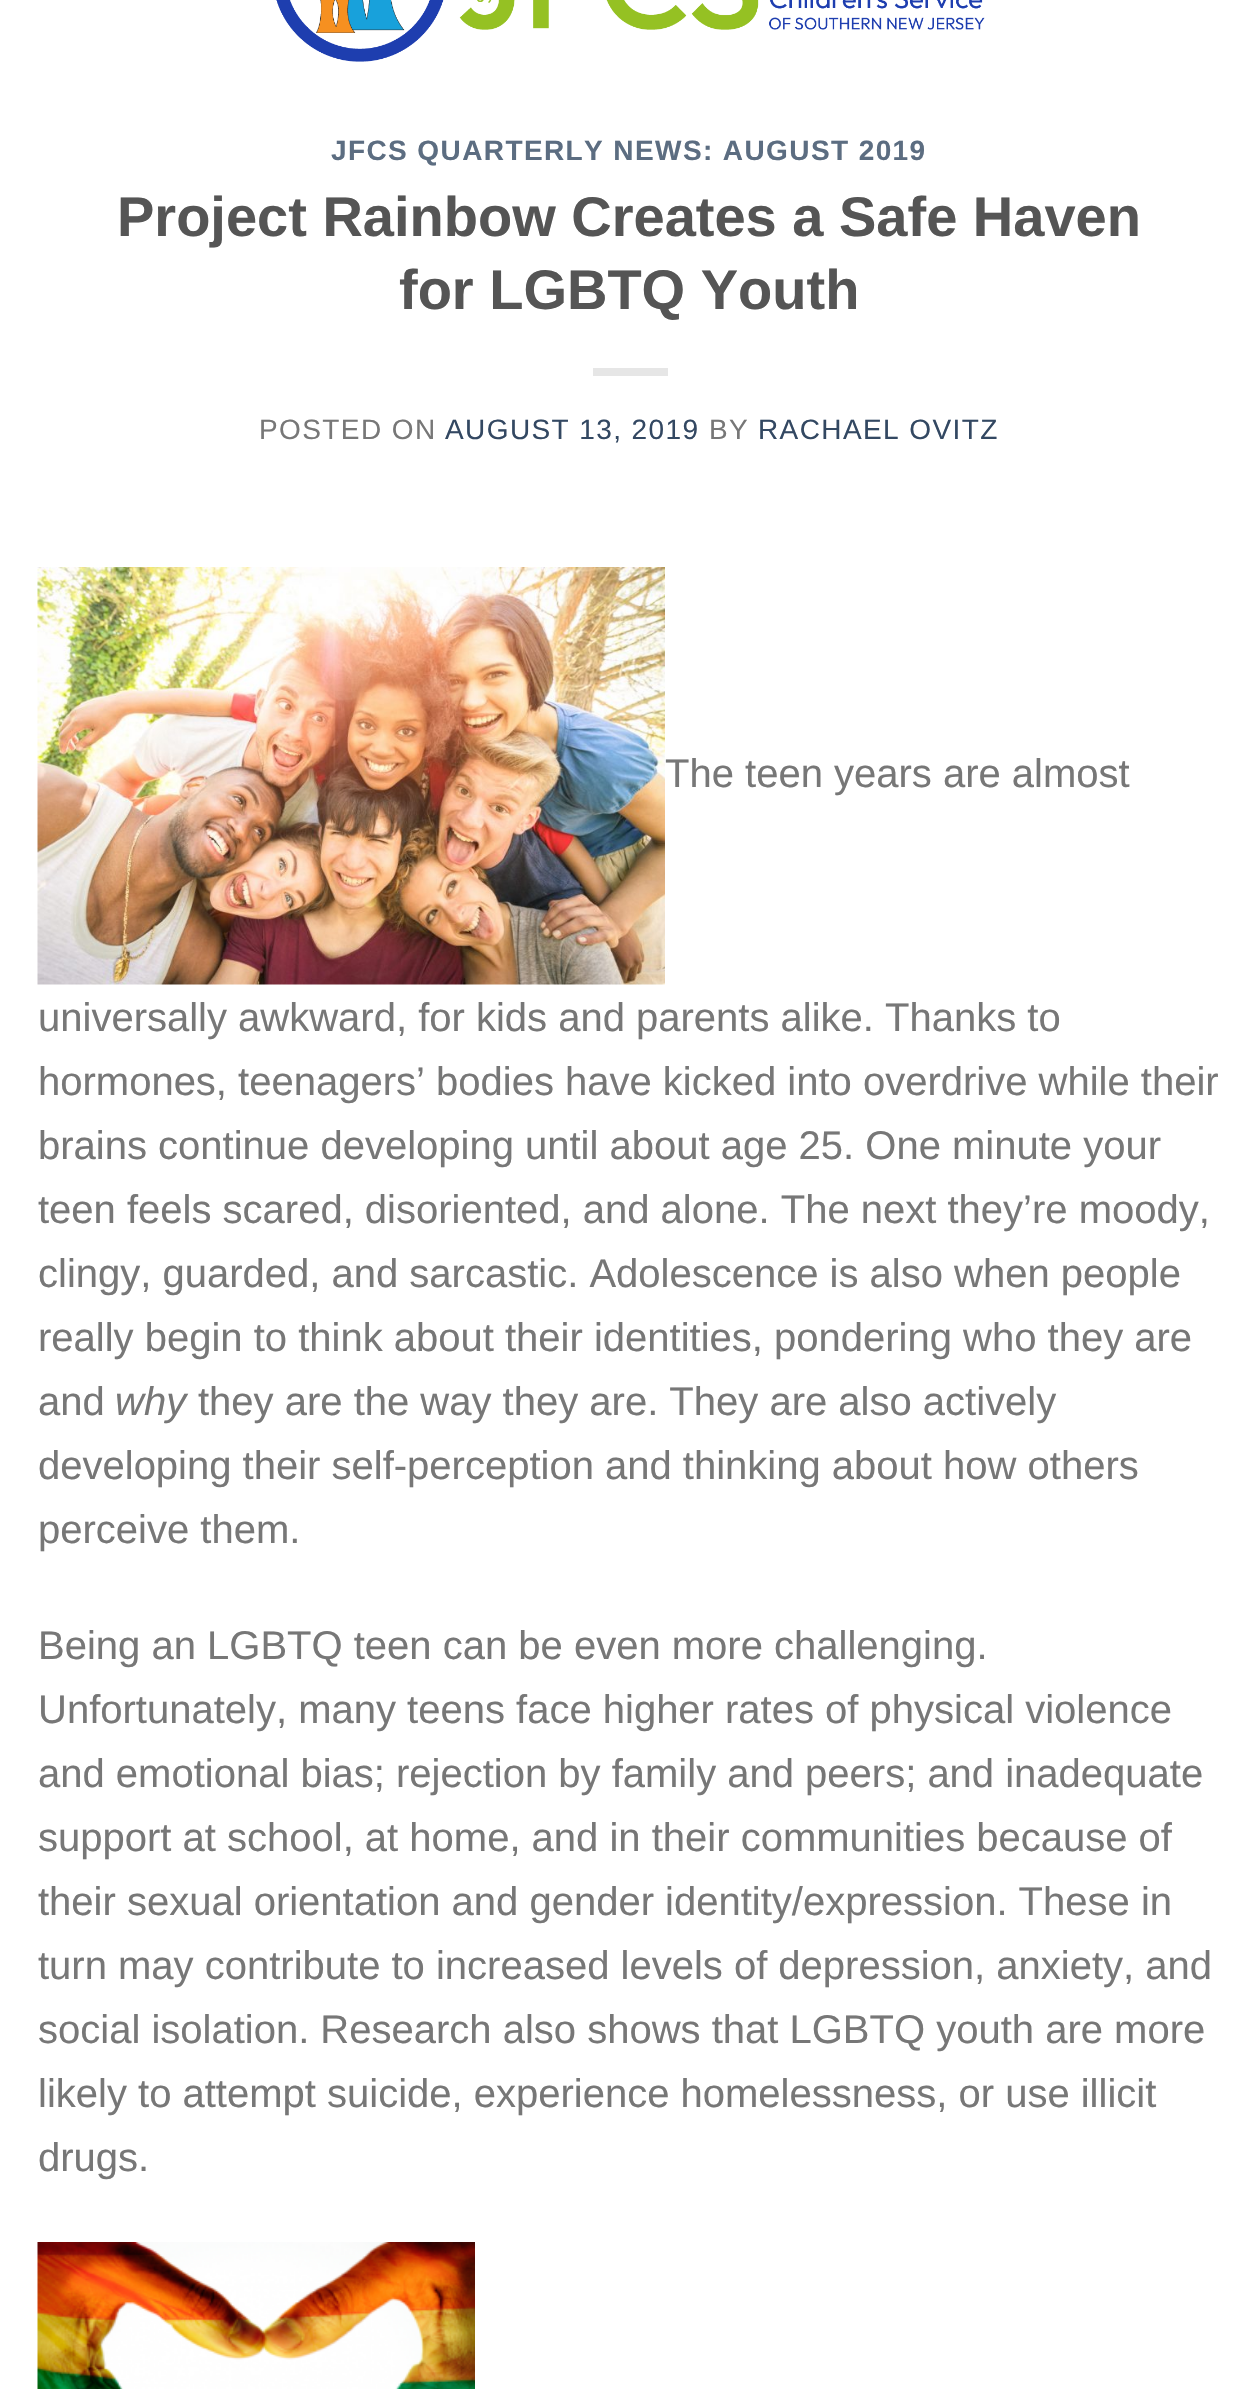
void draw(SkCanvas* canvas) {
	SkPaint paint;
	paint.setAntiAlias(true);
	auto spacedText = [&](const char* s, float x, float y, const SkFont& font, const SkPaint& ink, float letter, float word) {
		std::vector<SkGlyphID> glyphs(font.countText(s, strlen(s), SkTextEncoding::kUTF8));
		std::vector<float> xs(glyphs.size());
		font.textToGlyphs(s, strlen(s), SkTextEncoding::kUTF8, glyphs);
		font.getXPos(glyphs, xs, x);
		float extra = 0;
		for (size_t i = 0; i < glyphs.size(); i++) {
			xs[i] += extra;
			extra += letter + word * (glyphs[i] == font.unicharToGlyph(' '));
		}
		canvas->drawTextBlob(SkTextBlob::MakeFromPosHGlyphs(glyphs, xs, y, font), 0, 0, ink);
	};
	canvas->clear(0xffffffff);
	canvas->drawImageRect(SkImages::DeferredFromEncodedData(SkData::MakeFromFileName("img1.png")), SkRect::MakeXYWH(276, 0, 709, 62), SkSamplingOptions());
	SkFont f1(fontMgr->matchFamilyStyle("Liberation Sans", SkFontStyle::Bold()), 28);
	f1.setSubpixel(true);
	paint.setColor(0xff5c6d81);
	spacedText("JFCS QUARTERLY NEWS: AUGUST 2019", 331, 160, f1, paint, 1.4, 0);
	SkFont f2(fontMgr->matchFamilyStyle("Liberation Sans", SkFontStyle::Bold()), 56);
	f2.setSubpixel(true);
	paint.setColor(0xff555555);
	canvas->drawString("Project Rainbow Creates a Safe Haven", 117, 236, f2, paint);
	canvas->drawString("for LGBTQ Youth", 399, 309, f2, paint);
	paint.setColor(0xffe6e6e6);
	canvas->drawRect(SkRect::MakeXYWH(593, 368, 75, 8), paint);
	SkFont f3(fontMgr->matchFamilyStyle("Liberation Sans", SkFontStyle::Normal()), 28);
	f3.setSubpixel(true);
	paint.setColor(0xff777777);
	spacedText("POSTED ON", 259, 439, f3, paint, 1.4, 0);
	paint.setColor(0xff334862);
	spacedText("AUGUST 13, 2019", 445, 439, f3, paint, 1.4, 0);
	paint.setColor(0xff777777);
	spacedText("BY", 709, 439, f3, paint, 1.4, 0);
	paint.setColor(0xff334862);
	spacedText("RACHAEL OVITZ", 758, 439, f3, paint, 1.4, 0);
	canvas->drawImageRect(SkImages::DeferredFromEncodedData(SkData::MakeFromFileName("img2.png")), SkRect::MakeXYWH(37, 567, 628, 418), SkSamplingOptions());
	SkFont f4(fontMgr->matchFamilyStyle("Liberation Sans", SkFontStyle::Normal()), 40);
	f4.setSubpixel(true);
	paint.setColor(0xff777777);
	canvas->drawString("The teen years are almost", 665, 787, f4, paint);
	canvas->drawString("universally awkward, for kids and parents alike. Thanks to", 38, 1031, f4, paint);
	canvas->drawString("hormones, teenagers’ bodies have kicked into overdrive while their", 38, 1095, f4, paint);
	canvas->drawString("brains continue developing until about age 25. One minute your", 38, 1159, f4, paint);
	canvas->drawString("teen feels scared, disoriented, and alone. The next they’re moody,", 38, 1223, f4, paint);
	canvas->drawString("clingy, guarded, and sarcastic. Adolescence is also when people", 38, 1287, f4, paint);
	canvas->drawString("really begin to think about their identities, pondering who they are", 38, 1351, f4, paint);
	canvas->drawString("and", 38, 1415, f4, paint);
	SkFont f5(fontMgr->matchFamilyStyle("Liberation Sans", SkFontStyle::Italic()), 40);
	f5.setSubpixel(true);
	canvas->drawString("why", 115, 1415, f5, paint);
	canvas->drawString("they are the way they are. They are also actively", 198, 1415, f4, paint);
	canvas->drawString("developing their self-perception and thinking about how others", 38, 1479, f4, paint);
	canvas->drawString("perceive them.", 38, 1543, f4, paint);
	canvas->drawString("Being an LGBTQ teen can be even more challenging.", 38, 1659, f4, paint);
	canvas->drawString("Unfortunately, many teens face higher rates of physical violence", 38, 1723, f4, paint);
	canvas->drawString("and emotional bias; rejection by family and peers; and inadequate", 38, 1787, f4, paint);
	canvas->drawString("support at school, at home, and in their communities because of", 38, 1851, f4, paint);
	canvas->drawString("their sexual orientation and gender identity/expression. These in", 38, 1915, f4, paint);
	canvas->drawString("turn may contribute to increased levels of depression, anxiety, and", 38, 1979, f4, paint);
	canvas->drawString("social isolation. Research also shows that LGBTQ youth are more", 38, 2043, f4, paint);
	canvas->drawString("likely to attempt suicide, experience homelessness, or use illicit", 38, 2107, f4, paint);
	canvas->drawString("drugs.", 38, 2171, f4, paint);
	canvas->drawImageRect(SkImages::DeferredFromEncodedData(SkData::MakeFromFileName("img3.png")), SkRect::MakeXYWH(37, 2242, 438, 147), SkSamplingOptions());
}
